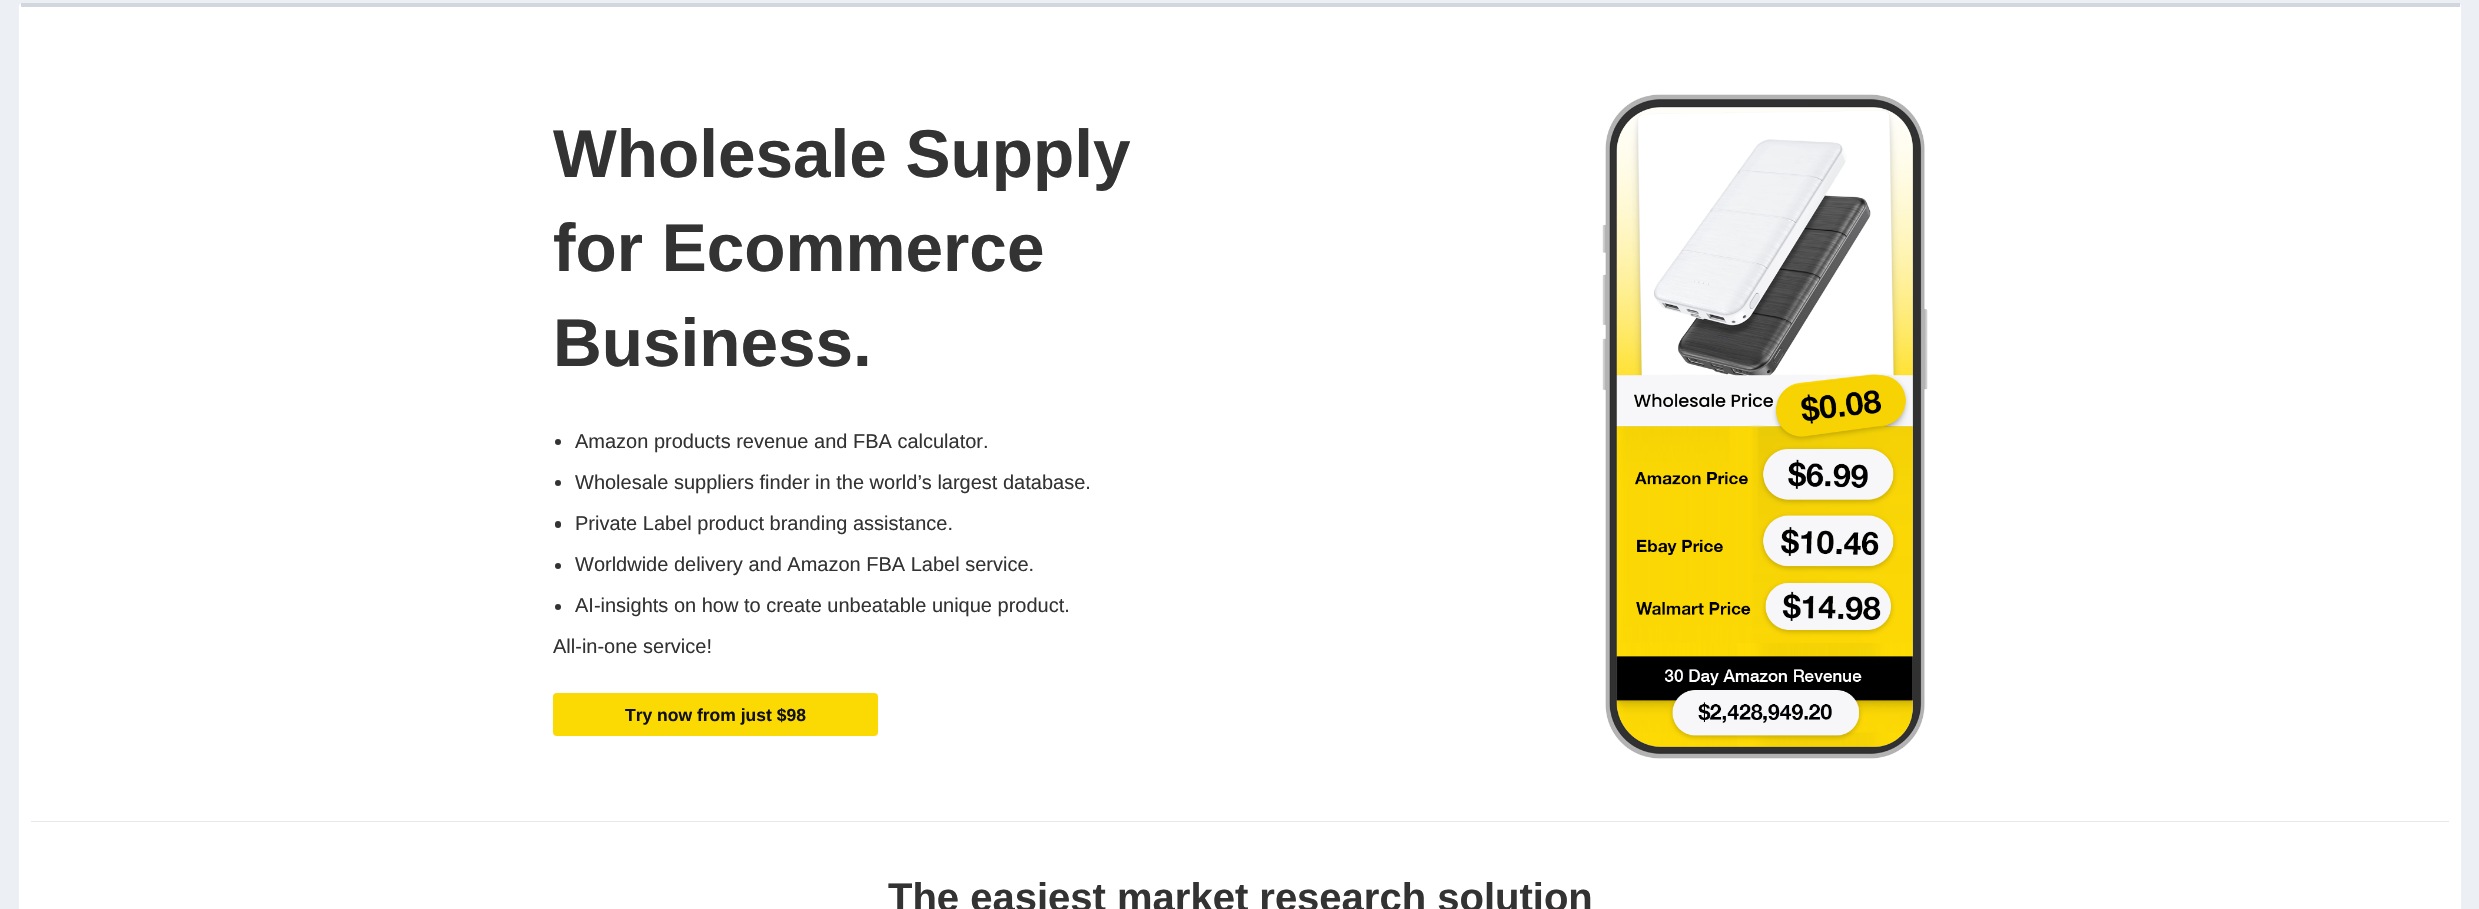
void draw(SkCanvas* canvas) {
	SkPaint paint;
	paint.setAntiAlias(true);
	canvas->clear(0xffecf0f5);
	paint.setColor(0xffffffff);
	canvas->drawRoundRect(SkRect::MakeXYWH(19, 3, 2442, 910), 4, 4, paint);
	paint.setColor(0xffd2d6de);
	canvas->drawRect(SkRect::MakeXYWH(21, 3, 2439, 4), paint);
	SkFont f1(fontMgr->matchFamilyStyle("Liberation Sans", SkFontStyle::Bold()), 67.5);
	f1.setSubpixel(true);
	paint.setColor(0xff333333);
	canvas->drawString("Wholesale Supply", 553, 177, f1, paint);
	canvas->drawString("for Ecommerce", 553, 271, f1, paint);
	canvas->drawString("Business.", 553, 366, f1, paint);
	canvas->drawCircle(558, 442, 3, paint);
	SkFont f2(fontMgr->matchFamilyStyle("Liberation Sans", SkFontStyle::Normal()), 20);
	f2.setSubpixel(true);
	canvas->drawString("Amazon products revenue and FBA calculator.", 575, 448, f2, paint);
	canvas->drawCircle(558, 483, 3, paint);
	canvas->drawString("Wholesale suppliers finder in the world’s largest database.", 575, 489, f2, paint);
	canvas->drawRoundRect(SkRect::MakeXYWH(555, 521, 6, 7), 3, 3, paint);
	canvas->drawString("Private Label product branding assistance.", 575, 530, f2, paint);
	canvas->drawCircle(558, 566, 3, paint);
	canvas->drawString("Worldwide delivery and Amazon FBA Label service.", 575, 571, f2, paint);
	canvas->drawCircle(558, 607, 3, paint);
	canvas->drawString("AI-insights on how to create unbeatable unique product.", 575, 612, f2, paint);
	canvas->drawString("All-in-one service!", 553, 653, f2, paint);
	paint.setColor(0xfffbd903);
	canvas->drawRoundRect(SkRect::MakeXYWH(553, 693, 325, 43), 4, 4, paint);
	SkFont f3(fontMgr->matchFamilyStyle("Liberation Sans", SkFontStyle::Bold()), 17.5);
	f3.setSubpixel(true);
	paint.setColor(0xff111111);
	canvas->drawString("Try now from just $98", 625, 721, f3, paint);
	canvas->drawImageRect(SkImages::DeferredFromEncodedData(SkData::MakeFromFileName("img1.png")), SkRect::MakeXYWH(1602, 94, 326, 665), SkSamplingOptions());
	paint.setColor(0xffe8e8e8);
	canvas->drawRect(SkRect::MakeXYWH(31, 821, 2418, 1), paint);
	SkFont f4(fontMgr->matchFamilyStyle("Liberation Sans", SkFontStyle::Bold()), 40);
	f4.setSubpixel(true);
	paint.setColor(0xff333333);
	canvas->drawString("The easiest market research solution", 888, 911, f4, paint);
}
